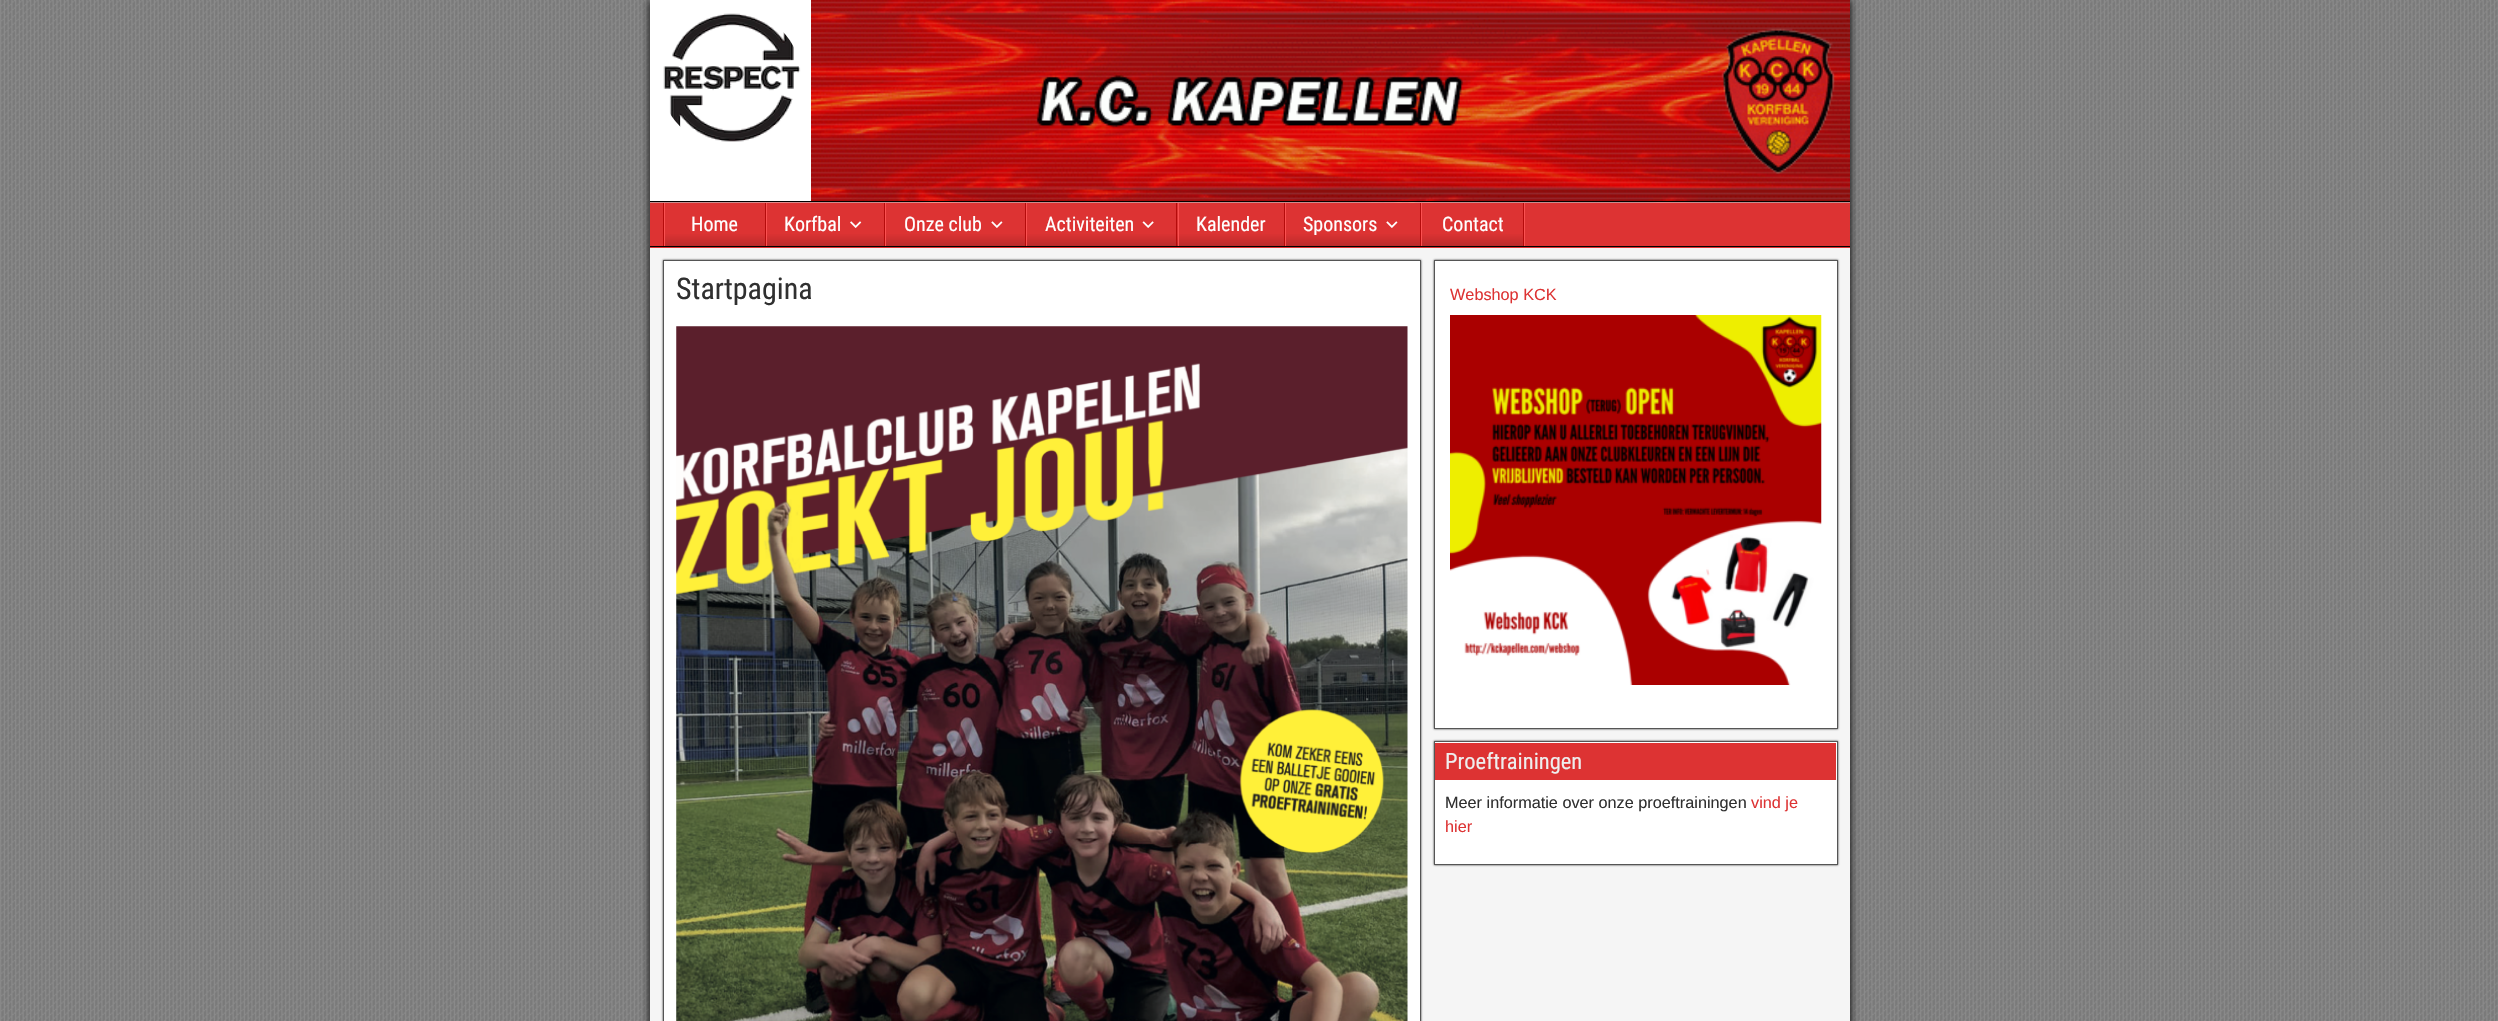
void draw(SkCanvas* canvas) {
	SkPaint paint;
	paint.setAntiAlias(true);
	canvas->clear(0xff7a7a7a);
	canvas->drawImageRect(SkImages::DeferredFromEncodedData(SkData::MakeFromFileName("img1.png")), SkRect::MakeXYWH(0, 0, 2498, 1021), SkSamplingOptions());
	paint.setColor(0xff000000);
	paint.setMaskFilter(SkMaskFilter::MakeBlur(kNormal_SkBlurStyle, 4));
	canvas->drawRect(SkRect::MakeXYWH(650, 0, 1200, 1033), paint);
	paint.setMaskFilter(nullptr);
	paint.setColor(0xffffffff);
	canvas->drawRect(SkRect::MakeXYWH(650, 202, 1200, 1), paint);
	canvas->drawImageRect(SkImages::DeferredFromEncodedData(SkData::MakeFromFileName("img2.png")), SkRect::MakeXYWH(650, 0, 1200, 203), SkSamplingOptions());
	paint.setColor(0xff000000);
	canvas->drawRect(SkRect::MakeXYWH(650, 201, 1200, 1), paint);
	paint.setColor(0xffffffff);
	canvas->drawRect(SkRect::MakeXYWH(650, 0, 161, 201), paint);
	canvas->drawImageRect(SkImages::DeferredFromEncodedData(SkData::MakeFromFileName("img3.png")), SkRect::MakeXYWH(663, 13, 138, 129), SkSamplingOptions());
	paint.setColor(0xffdd3333);
	canvas->drawRect(SkRect::MakeXYWH(650, 203, 1200, 45), paint);
	paint.setColor(0xff000000);
	canvas->drawRect(SkRect::MakeXYWH(650, 246, 1200, 1), paint);
	paint.setColor(0xfffb5151);
	canvas->drawRect(SkRect::MakeXYWH(1524, 203, 1, 43), paint);
	paint.setColor(0xffb50b0b);
	canvas->drawRect(SkRect::MakeXYWH(663, 203, 1, 43), paint);
	{
		const SkColor colors[] = {0xffdd3333, 0xffbc2b2b};
		const float stops[] = {0.7, 1};
		const SkPoint ends[] = {{715, 203}, {715, 246}};
		paint.setShader(SkGradientShader::MakeLinear(ends, colors, stops, 2, SkTileMode::kClamp));
		paint.setAlpha(255);
	}
	canvas->drawRect(SkRect::MakeXYWH(665, 234, 100, 12), paint);
	paint.setShader(nullptr);
	paint.setColor(0xffb50b0b);
	canvas->drawRect(SkRect::MakeXYWH(765, 203, 1, 43), paint);
	paint.setColor(0xfffb5151);
	canvas->drawRect(SkRect::MakeXYWH(664, 203, 1, 43), paint);
	SkFont f1(fontMgr->matchFamilyStyle("Roboto Condensed", SkFontStyle::Normal()), 20);
	f1.setSubpixel(true);
	paint.setColor(0xffffffff);
	canvas->drawString("Home", 691, 231, f1, paint);
	{
		const SkColor colors[] = {0xffdd3333, 0xffbc2b2b};
		const float stops[] = {0.7, 1};
		const SkPoint ends[] = {{826, 203}, {826, 246}};
		paint.setShader(SkGradientShader::MakeLinear(ends, colors, stops, 2, SkTileMode::kClamp));
		paint.setAlpha(255);
	}
	canvas->drawRect(SkRect::MakeXYWH(767, 234, 117, 12), paint);
	paint.setShader(nullptr);
	paint.setColor(0xffb50b0b);
	canvas->drawRect(SkRect::MakeXYWH(884, 203, 1, 43), paint);
	paint.setColor(0xfffb5151);
	canvas->drawRect(SkRect::MakeXYWH(766, 203, 1, 43), paint);
	paint.setColor(0xffffffff);
	canvas->drawString("Korfbal", 784, 231, f1, paint);
	canvas->drawImageRect(SkImages::DeferredFromEncodedData(SkData::MakeFromFileName("img4.png")), SkRect::MakeXYWH(850, 221, 12, 7), SkSamplingOptions());
	{
		const SkColor colors[] = {0xffdd3333, 0xffbc2b2b};
		const float stops[] = {0.7, 1};
		const SkPoint ends[] = {{956, 203}, {956, 246}};
		paint.setShader(SkGradientShader::MakeLinear(ends, colors, stops, 2, SkTileMode::kClamp));
		paint.setAlpha(255);
	}
	canvas->drawRect(SkRect::MakeXYWH(886, 234, 139, 12), paint);
	paint.setShader(nullptr);
	paint.setColor(0xffb50b0b);
	canvas->drawRect(SkRect::MakeXYWH(1025, 203, 1, 43), paint);
	paint.setColor(0xfffb5151);
	canvas->drawRect(SkRect::MakeXYWH(885, 203, 1, 43), paint);
	paint.setColor(0xffffffff);
	canvas->drawString("Onze club", 904, 231, f1, paint);
	canvas->drawImageRect(SkImages::DeferredFromEncodedData(SkData::MakeFromFileName("img5.png")), SkRect::MakeXYWH(991, 221, 12, 7), SkSamplingOptions());
	{
		const SkColor colors[] = {0xffdd3333, 0xffbc2b2b};
		const float stops[] = {0.7, 1};
		const SkPoint ends[] = {{1102, 203}, {1102, 246}};
		paint.setShader(SkGradientShader::MakeLinear(ends, colors, stops, 2, SkTileMode::kClamp));
		paint.setAlpha(255);
	}
	canvas->drawRect(SkRect::MakeXYWH(1027, 234, 151, 12), paint);
	paint.setShader(nullptr);
	paint.setColor(0xffb50b0b);
	canvas->drawRect(SkRect::MakeXYWH(1176, 203, 1, 43), paint);
	paint.setColor(0xfffb5151);
	canvas->drawRect(SkRect::MakeXYWH(1026, 203, 1, 43), paint);
	paint.setColor(0xffffffff);
	canvas->drawString("Activiteiten", 1045, 231, f1, paint);
	canvas->drawImageRect(SkImages::DeferredFromEncodedData(SkData::MakeFromFileName("img6.png")), SkRect::MakeXYWH(1142, 221, 12, 7), SkSamplingOptions());
	{
		const SkColor colors[] = {0xffdd3333, 0xffbc2b2b};
		const float stops[] = {0.7, 1};
		const SkPoint ends[] = {{1231, 203}, {1231, 246}};
		paint.setShader(SkGradientShader::MakeLinear(ends, colors, stops, 2, SkTileMode::kClamp));
		paint.setAlpha(255);
	}
	canvas->drawRect(SkRect::MakeXYWH(1179, 234, 105, 12), paint);
	paint.setShader(nullptr);
	paint.setColor(0xffb50b0b);
	canvas->drawRect(SkRect::MakeXYWH(1284, 203, 1, 43), paint);
	paint.setColor(0xfffb5151);
	canvas->drawRect(SkRect::MakeXYWH(1178, 203, 1, 43), paint);
	paint.setColor(0xffffffff);
	canvas->drawString("Kalender", 1196, 231, f1, paint);
	{
		const SkColor colors[] = {0xffdd3333, 0xffbc2b2b};
		const float stops[] = {0.7, 1};
		const SkPoint ends[] = {{1353, 203}, {1353, 246}};
		paint.setShader(SkGradientShader::MakeLinear(ends, colors, stops, 2, SkTileMode::kClamp));
		paint.setAlpha(255);
	}
	canvas->drawRect(SkRect::MakeXYWH(1286, 234, 134, 12), paint);
	paint.setShader(nullptr);
	paint.setColor(0xffb50b0b);
	canvas->drawRect(SkRect::MakeXYWH(1420, 203, 1, 43), paint);
	paint.setColor(0xfffb5151);
	canvas->drawRect(SkRect::MakeXYWH(1285, 203, 1, 43), paint);
	paint.setColor(0xffffffff);
	canvas->drawString("Sponsors", 1303, 231, f1, paint);
	canvas->drawImageRect(SkImages::DeferredFromEncodedData(SkData::MakeFromFileName("img5.png")), SkRect::MakeXYWH(1386, 221, 12, 7), SkSamplingOptions());
	{
		const SkColor colors[] = {0xffdd3333, 0xffbc2b2b};
		const float stops[] = {0.7, 1};
		const SkPoint ends[] = {{1473, 203}, {1473, 246}};
		paint.setShader(SkGradientShader::MakeLinear(ends, colors, stops, 2, SkTileMode::kClamp));
		paint.setAlpha(255);
	}
	canvas->drawRect(SkRect::MakeXYWH(1422, 234, 101, 12), paint);
	paint.setShader(nullptr);
	paint.setColor(0xffb50b0b);
	canvas->drawRect(SkRect::MakeXYWH(1523, 203, 1, 43), paint);
	paint.setColor(0xfffb5151);
	canvas->drawRect(SkRect::MakeXYWH(1421, 203, 1, 43), paint);
	paint.setColor(0xffffffff);
	canvas->drawString("Contact", 1442, 231, f1, paint);
	paint.setColor(0xfff5f5f5);
	canvas->drawRect(SkRect::MakeXYWH(650, 248, 1200, 773), paint);
	paint.setColor(0xff333333);
	paint.setMaskFilter(SkMaskFilter::MakeBlur(kNormal_SkBlurStyle, 1));
	canvas->drawRect(SkRect::MakeXYWH(663, 260, 758, 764), paint);
	paint.setMaskFilter(nullptr);
	paint.setColor(0xffffffff);
	canvas->drawRect(SkRect::MakeXYWH(663.5, 260.5, 757, 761), paint);
	paint.setStroke(true);
	paint.setStrokeWidth(1);
	paint.setColor(0xff555555);
	canvas->drawRect(SkRect::MakeXYWH(663.5, 260.5, 757, 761), paint);
	SkFont f2(fontMgr->matchFamilyStyle("Roboto Condensed", SkFontStyle::Normal()), 30);
	f2.setSubpixel(true);
	paint.setStroke(false);
	paint.setColor(0xff303030);
	canvas->drawString("Startpagina", 676, 299, f2, paint);
	canvas->drawImageRect(SkImages::DeferredFromEncodedData(SkData::MakeFromFileName("img7.png")), SkRect::MakeXYWH(676, 326, 732, 695), SkSamplingOptions());
	paint.setColor(0xff333333);
	paint.setMaskFilter(SkMaskFilter::MakeBlur(kNormal_SkBlurStyle, 1));
	canvas->drawRect(SkRect::MakeXYWH(1434, 260, 404, 469), paint);
	paint.setMaskFilter(nullptr);
	paint.setColor(0xffffffff);
	canvas->drawRect(SkRect::MakeXYWH(1434.5, 260.5, 403, 468), paint);
	paint.setStroke(true);
	paint.setColor(0xff555555);
	canvas->drawRect(SkRect::MakeXYWH(1434.5, 260.5, 403, 468), paint);
	SkFont f3(fontMgr->matchFamilyStyle("Liberation Sans", SkFontStyle::Normal()), 16.25);
	f3.setSubpixel(true);
	paint.setStroke(false);
	paint.setColor(0xffdd3333);
	canvas->drawString("Webshop KCK", 1450, 300, f3, paint);
	canvas->drawImageRect(SkImages::DeferredFromEncodedData(SkData::MakeFromFileName("img8.png")), SkRect::MakeXYWH(1450, 315, 372, 370), SkSamplingOptions());
	paint.setColor(0xff333333);
	paint.setMaskFilter(SkMaskFilter::MakeBlur(kNormal_SkBlurStyle, 1));
	canvas->drawRect(SkRect::MakeXYWH(1434, 741, 404, 124), paint);
	paint.setMaskFilter(nullptr);
	paint.setColor(0xffffffff);
	canvas->drawRect(SkRect::MakeXYWH(1434.5, 741.5, 403, 123), paint);
	paint.setStroke(true);
	paint.setColor(0xff555555);
	canvas->drawRect(SkRect::MakeXYWH(1434.5, 741.5, 403, 123), paint);
	paint.setStroke(false);
	paint.setColor(0xffdd3333);
	canvas->drawRect(SkRect::MakeXYWH(1435, 743, 401, 37), paint);
	SkFont f4(fontMgr->matchFamilyStyle("Roboto Condensed", SkFontStyle::Normal()), 22.5);
	f4.setSubpixel(true);
	paint.setColor(0xffeeeeee);
	canvas->drawString("Proeftrainingen", 1445, 769, f4, paint);
	paint.setColor(0xff303030);
	canvas->drawString("Meer informatie over onze proeftrainingen", 1445, 808, f3, paint);
	paint.setColor(0xffdd3333);
	canvas->drawString("vind je", 1751, 808, f3, paint);
	canvas->drawString("hier", 1445, 832, f3, paint);
}
